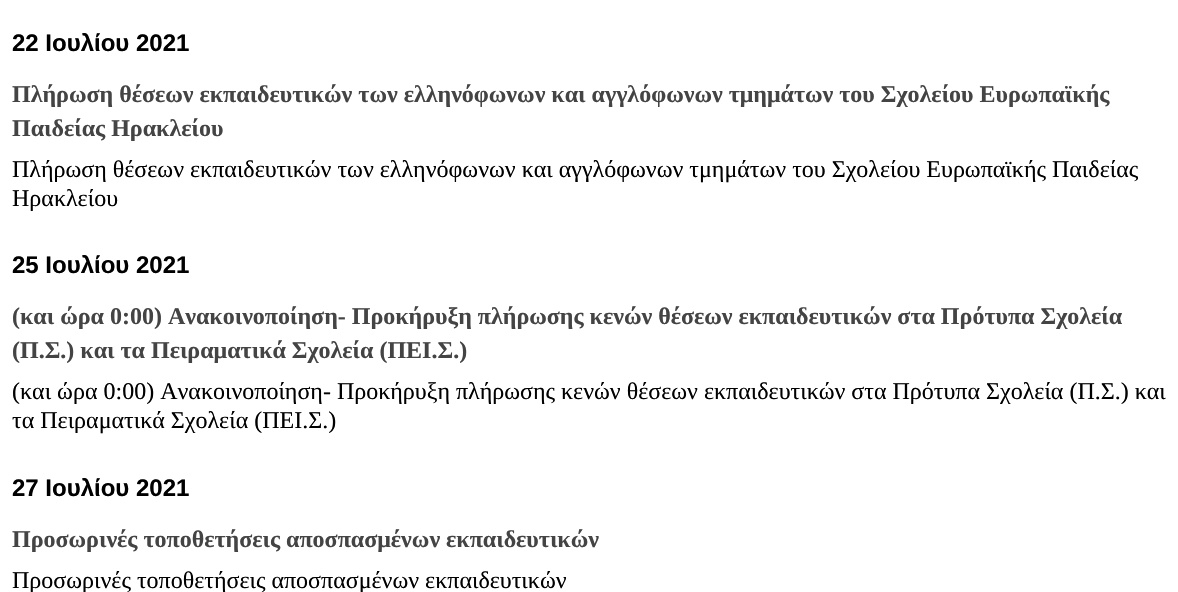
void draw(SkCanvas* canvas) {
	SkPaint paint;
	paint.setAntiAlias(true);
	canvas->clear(0xffffffff);
	SkFont f1(fontMgr->matchFamilyStyle("Liberation Sans", SkFontStyle::Bold()), 24);
	f1.setSubpixel(true);
	paint.setColor(0xff000000);
	canvas->drawString("22 Ιουλίου 2021", 12, 51, f1, paint);
	SkFont f2(fontMgr->matchFamilyStyle("Liberation Serif", SkFontStyle::Bold()), 24);
	f2.setSubpixel(true);
	paint.setColor(0xff444444);
	canvas->drawString("Πλήρωση θέσεων εκπαιδευτικών των ελληνόφωνων και αγγλόφωνων τμημάτων του Σχολείου Ευρωπαϊκής", 12, 102, f2, paint);
	canvas->drawString("Παιδείας Ηρακλείου", 12, 136, f2, paint);
	SkFont f3(fontMgr->matchFamilyStyle("Liberation Serif", SkFontStyle::Normal()), 24);
	f3.setSubpixel(true);
	paint.setColor(0xff000000);
	canvas->drawString("Πλήρωση θέσεων εκπαιδευτικών των ελληνόφωνων και αγγλόφωνων τμημάτων του Σχολείου Ευρωπαϊκής Παιδείας", 12, 177, f3, paint);
	canvas->drawString("Ηρακλείου", 12, 206, f3, paint);
	canvas->drawString("25 Ιουλίου 2021", 12, 273, f1, paint);
	paint.setColor(0xff444444);
	canvas->drawString("(και ώρα 0:00) Ανακοινοποίηση- Προκήρυξη πλήρωσης κενών θέσεων εκπαιδευτικών στα Πρότυπα Σχολεία", 12, 324, f2, paint);
	canvas->drawString("(Π.Σ.) και τα Πειραματικά Σχολεία (ΠΕΙ.Σ.)", 12, 358, f2, paint);
	paint.setColor(0xff000000);
	canvas->drawString("(και ώρα 0:00) Ανακοινοποίηση- Προκήρυξη πλήρωσης κενών θέσεων εκπαιδευτικών στα Πρότυπα Σχολεία (Π.Σ.) και", 12, 399, f3, paint);
	canvas->drawString("τα Πειραματικά Σχολεία (ΠΕΙ.Σ.)", 12, 428, f3, paint);
	canvas->drawString("27 Ιουλίου 2021", 12, 496, f1, paint);
	paint.setColor(0xff444444);
	canvas->drawString("Προσωρινές τοποθετήσεις αποσπασμένων εκπαιδευτικών", 12, 547, f2, paint);
	paint.setColor(0xff000000);
	canvas->drawString("Προσωρινές τοποθετήσεις αποσπασμένων εκπαιδευτικών", 12, 588, f3, paint);
}
